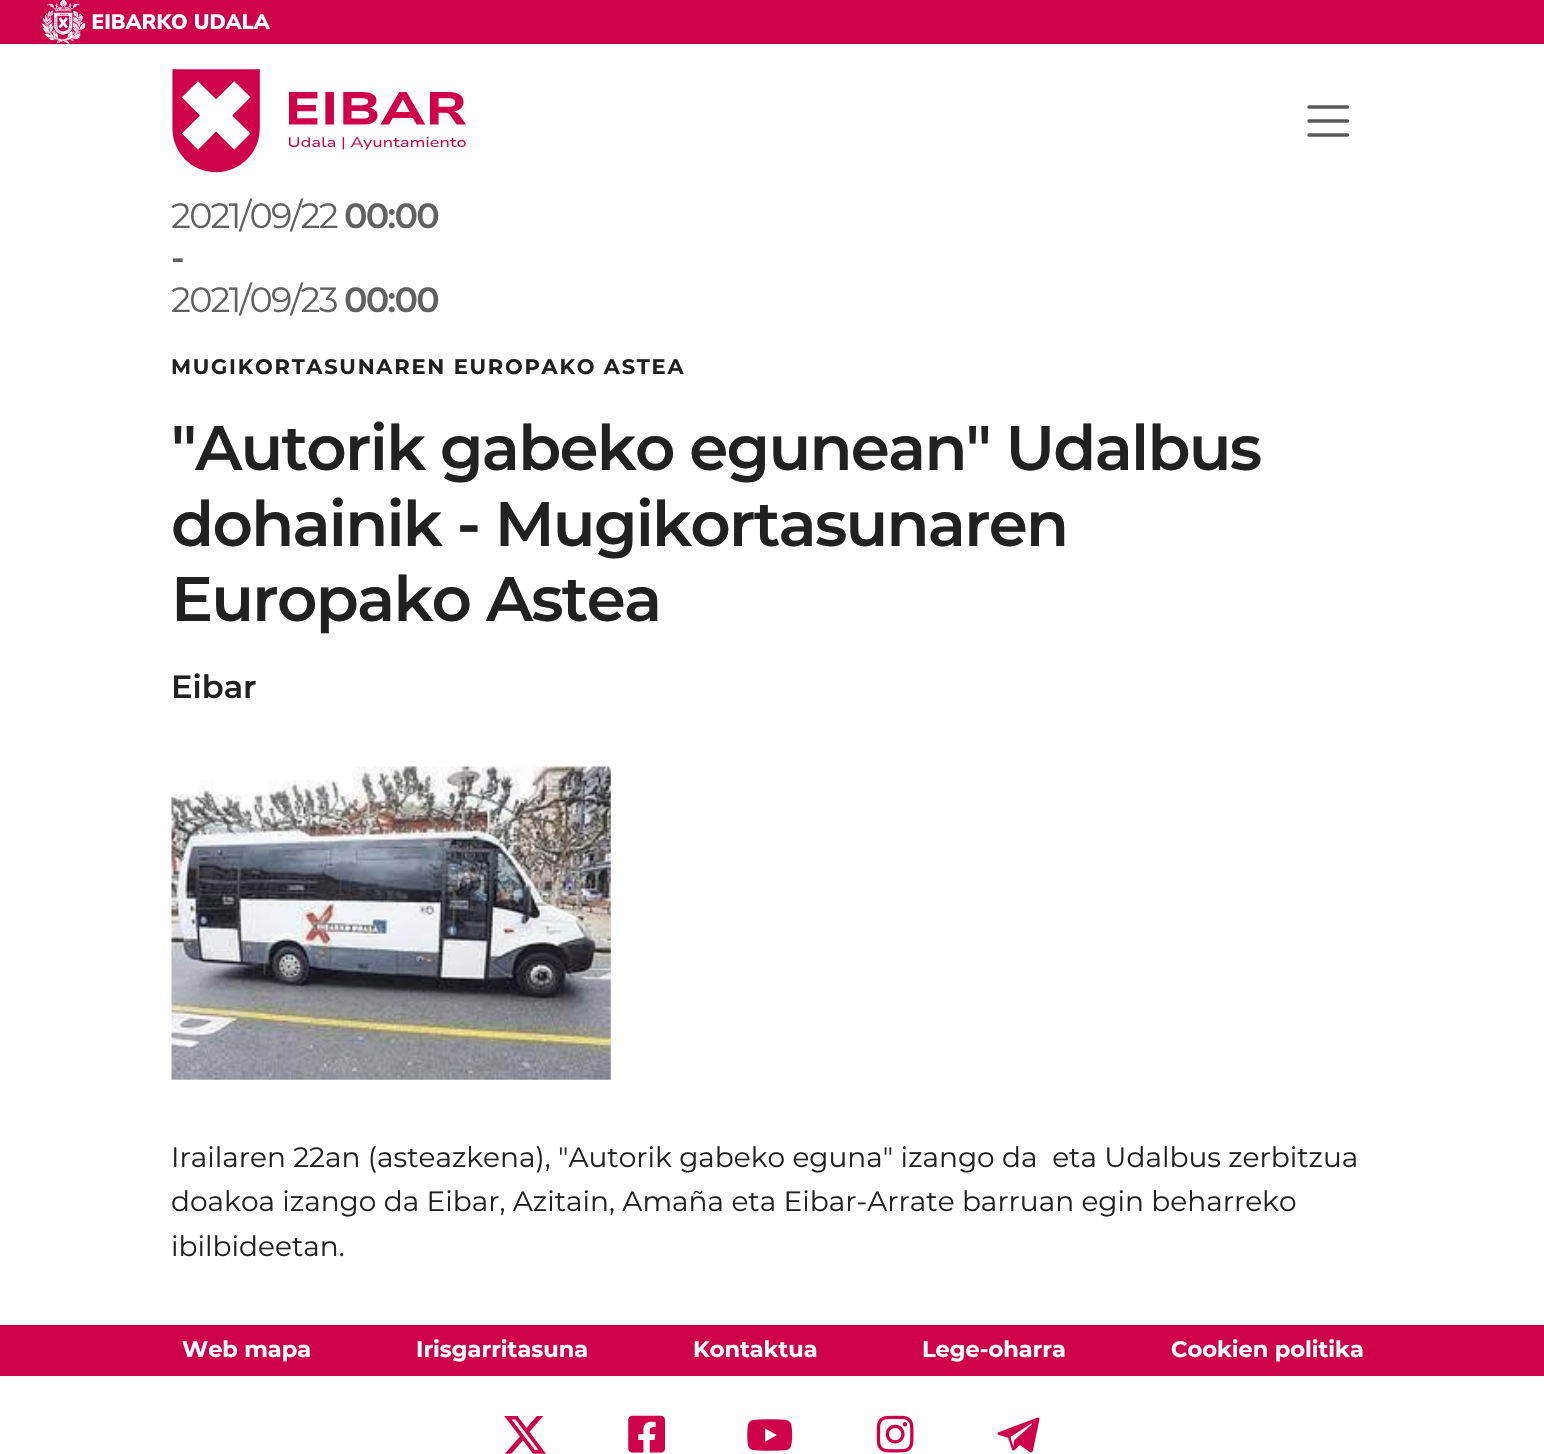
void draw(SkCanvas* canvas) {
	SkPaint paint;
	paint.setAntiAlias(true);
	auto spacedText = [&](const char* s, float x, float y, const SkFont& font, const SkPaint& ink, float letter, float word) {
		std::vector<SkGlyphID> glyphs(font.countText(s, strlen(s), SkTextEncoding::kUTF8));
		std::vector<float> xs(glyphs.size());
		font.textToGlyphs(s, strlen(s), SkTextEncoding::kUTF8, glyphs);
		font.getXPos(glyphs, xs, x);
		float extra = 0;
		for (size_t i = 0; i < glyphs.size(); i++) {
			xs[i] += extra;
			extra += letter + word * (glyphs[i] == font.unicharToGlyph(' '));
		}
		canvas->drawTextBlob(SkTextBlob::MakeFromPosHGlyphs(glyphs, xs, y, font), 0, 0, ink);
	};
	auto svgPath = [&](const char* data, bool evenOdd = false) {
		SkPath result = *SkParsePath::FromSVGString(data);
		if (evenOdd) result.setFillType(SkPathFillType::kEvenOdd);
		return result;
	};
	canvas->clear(0xffffffff);
	paint.setColor(0xffce004a);
	canvas->drawRect(SkRect::MakeXYWH(0, 0, 1544, 44), paint);
	canvas->drawImageRect(SkImages::DeferredFromEncodedData(SkData::MakeFromFileName("img1.png")), SkRect::MakeXYWH(42, 0, 228, 44), SkSamplingOptions());
	canvas->drawImageRect(SkImages::DeferredFromEncodedData(SkData::MakeFromFileName("img2.png")), SkRect::MakeXYWH(172, 69, 294, 104), SkSamplingOptions());
	paint.setStroke(true);
	paint.setStrokeWidth(3.5);
	paint.setStrokeCap(SkPaint::kRound_Cap);
	paint.setColor(0xff595959);
	canvas->drawPath(svgPath("M1309 107H1347.5M1309 121H1347.5M1309 135H1347.5"), paint);
	SkFont f1(fontMgr->matchFamilyStyle("Montserrat", SkFontStyle(100, SkFontStyle::kNormal_Width, SkFontStyle::kUpright_Slant)), 35);
	f1.setSubpixel(true);
	paint.setStroke(false);
	paint.setColor(0xff616161);
	spacedText("2021/09/22", 171, 228, f1, paint, -1.75, 0);
	SkFont f2(fontMgr->matchFamilyStyle("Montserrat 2", SkFontStyle(100, SkFontStyle::kNormal_Width, SkFontStyle::kUpright_Slant)), 35);
	f2.setSubpixel(true);
	spacedText("00:00", 344, 228, f2, paint, -1.75, 0);
	spacedText("-", 171, 270, f2, paint, -1.75, 0);
	spacedText("2021/09/23", 171, 312, f1, paint, -1.75, 0);
	spacedText("00:00", 344, 312, f2, paint, -1.75, 0);
	SkFont f3(fontMgr->matchFamilyStyle("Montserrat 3", SkFontStyle(100, SkFontStyle::kNormal_Width, SkFontStyle::kUpright_Slant)), 21);
	f3.setSubpixel(true);
	paint.setColor(0xff212121);
	spacedText("MUGIKORTASUNAREN EUROPAKO ASTEA", 171, 374, f3, paint, 1.75, 0);
	SkFont f4(fontMgr->matchFamilyStyle("Montserrat 2", SkFontStyle(100, SkFontStyle::kNormal_Width, SkFontStyle::kUpright_Slant)), 62.8);
	f4.setSubpixel(true);
	spacedText("\"Autorik gabeko egunean\" Udalbus", 171, 470, f4, paint, -1.75, 0);
	spacedText("dohainik - Mugikortasunaren", 171, 546, f4, paint, -1.75, 0);
	spacedText("Europako Astea", 171, 621, f4, paint, -1.75, 0);
	SkFont f5(fontMgr->matchFamilyStyle("Montserrat 2", SkFontStyle(100, SkFontStyle::kNormal_Width, SkFontStyle::kUpright_Slant)), 32);
	f5.setSubpixel(true);
	canvas->drawString("Eibar", 171, 698, f5, paint);
	canvas->drawImageRect(SkImages::DeferredFromEncodedData(SkData::MakeFromFileName("img3.png")), SkRect::MakeXYWH(171, 766, 440, 314), SkSamplingOptions());
	SkFont f6(fontMgr->matchFamilyStyle("Montserrat", SkFontStyle(100, SkFontStyle::kNormal_Width, SkFontStyle::kUpright_Slant)), 28);
	f6.setSubpixel(true);
	canvas->drawString("Irailaren 22an (asteazkena), \"Autorik gabeko eguna\" izango da  eta Udalbus zerbitzua", 171, 1167, f6, paint);
	canvas->drawString("doakoa izango da Eibar, Azitain, Amaña eta Eibar-Arrate barruan egin beharreko", 171, 1211, f6, paint);
	canvas->drawString("ibilbideetan.", 171, 1256, f6, paint);
	paint.setColor(0xffce004a);
	canvas->drawRect(SkRect::MakeXYWH(0, 1325, 1544, 51), paint);
	SkFont f7(fontMgr->matchFamilyStyle("Montserrat 3", SkFontStyle(100, SkFontStyle::kNormal_Width, SkFontStyle::kUpright_Slant)), 22.5);
	f7.setSubpixel(true);
	paint.setColor(0xffffffff);
	canvas->drawString("Web mapa", 182, 1357, f7, paint);
	canvas->drawString("Irisgarritasuna", 416, 1357, f7, paint);
	canvas->drawString("Kontaktua", 693, 1357, f7, paint);
	canvas->drawString("Lege-oharra", 922, 1357, f7, paint);
	canvas->drawString("Cookien politika", 1171, 1357, f7, paint);
	canvas->drawImageRect(SkImages::DeferredFromEncodedData(SkData::MakeFromFileName("img4.png")), SkRect::MakeXYWH(504, 1416, 42, 38), SkSamplingOptions());
	canvas->drawImageRect(SkImages::DeferredFromEncodedData(SkData::MakeFromFileName("img5.png")), SkRect::MakeXYWH(628, 1415, 37, 38), SkSamplingOptions());
	canvas->drawImageRect(SkImages::DeferredFromEncodedData(SkData::MakeFromFileName("img6.png")), SkRect::MakeXYWH(747, 1419, 46, 32), SkSamplingOptions());
	canvas->drawImageRect(SkImages::DeferredFromEncodedData(SkData::MakeFromFileName("img7.png")), SkRect::MakeXYWH(876, 1415, 38, 38), SkSamplingOptions());
	canvas->drawImageRect(SkImages::DeferredFromEncodedData(SkData::MakeFromFileName("img8.png")), SkRect::MakeXYWH(997, 1417, 43, 36), SkSamplingOptions());
}
